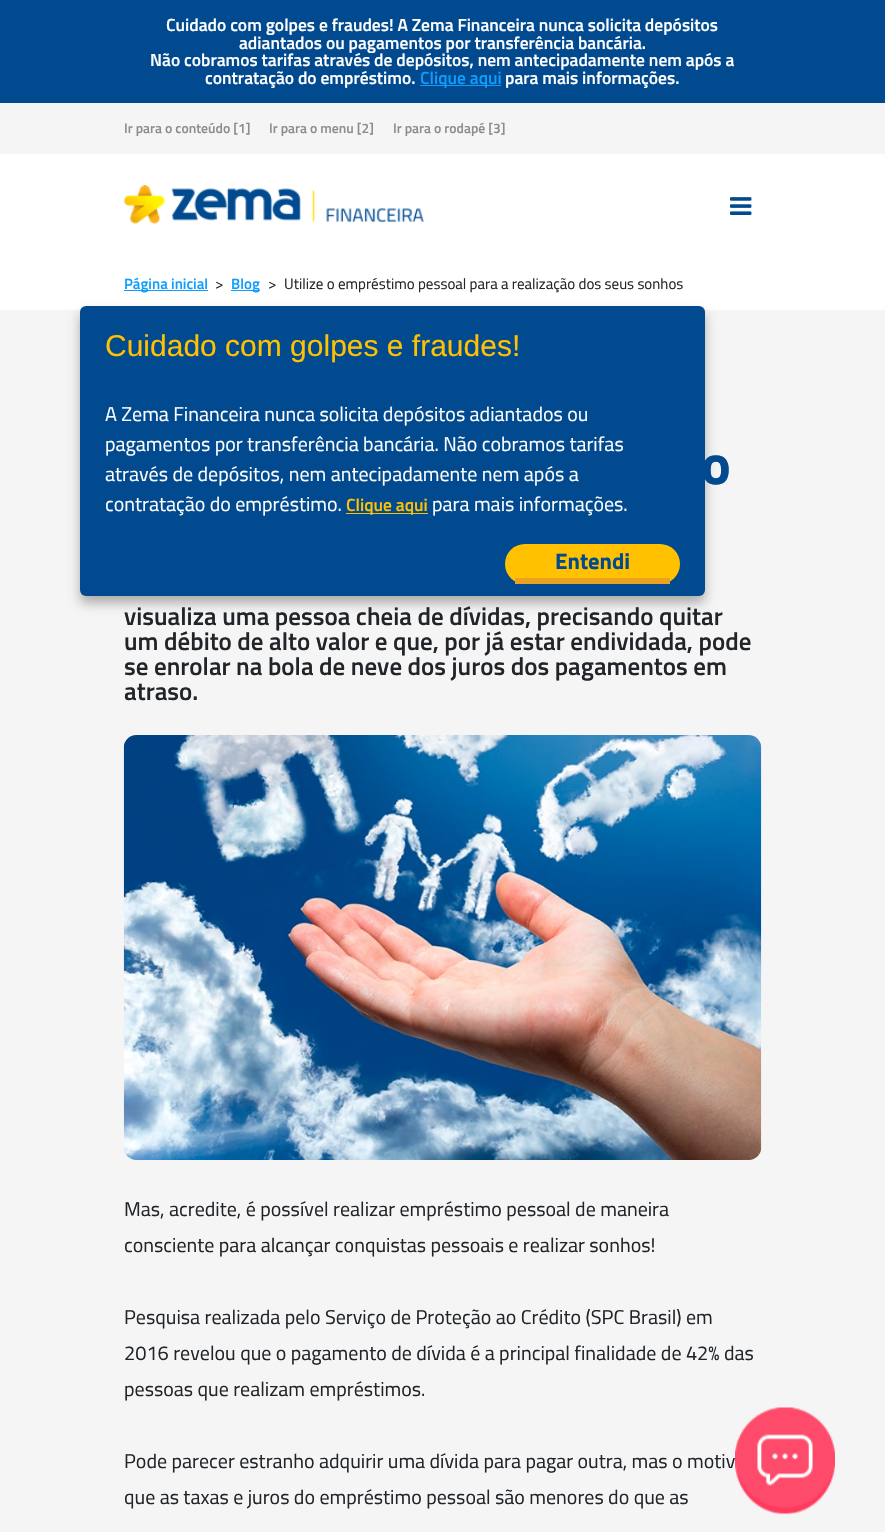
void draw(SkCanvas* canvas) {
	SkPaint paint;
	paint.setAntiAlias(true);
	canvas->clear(0xffffffff);
	paint.setColor(0xff024a8f);
	canvas->drawRect(SkRect::MakeXYWH(0, 0, 885, 103), paint);
	SkFont f1(fontMgr->matchFamilyStyle("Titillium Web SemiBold", SkFontStyle(600, SkFontStyle::kNormal_Width, SkFontStyle::kUpright_Slant)), 17.5);
	f1.setSubpixel(true);
	paint.setColor(0xffffffff);
	canvas->drawString("Cuidado com golpes e fraudes! A Zema Financeira nunca solicita depósitos", 166, 31, f1, paint);
	canvas->drawString("adiantados ou pagamentos por transferência bancária.", 239, 49, f1, paint);
	canvas->drawString("Não cobramos tarifas através de depósitos, nem antecipadamente nem após a", 150, 66, f1, paint);
	canvas->drawString("contratação do empréstimo.", 205, 84, f1, paint);
	paint.setColor(0xff0e9dfd);
	canvas->drawRect(SkRect::MakeXYWH(420, 85, 81, 1), paint);
	canvas->drawString("Clique aqui", 420, 84, f1, paint);
	paint.setColor(0xffffffff);
	canvas->drawString("para mais informações.", 505, 84, f1, paint);
	paint.setColor(0xfff5f5f5);
	canvas->drawRect(SkRect::MakeXYWH(0, 103, 885, 51), paint);
	SkFont f2(fontMgr->matchFamilyStyle("Titillium Web SemiBold", SkFontStyle(600, SkFontStyle::kNormal_Width, SkFontStyle::kUpright_Slant)), 13.75);
	f2.setSubpixel(true);
	paint.setColor(0xff8b8d8f);
	canvas->drawString("Ir para o conteúdo [1]", 124, 133, f2, paint);
	canvas->drawString("Ir para o menu [2]", 269, 133, f2, paint);
	canvas->drawString("Ir para o rodapé [3]", 393, 133, f2, paint);
	canvas->drawImageRect(SkImages::DeferredFromEncodedData(SkData::MakeFromFileName("img1.png")), SkRect::MakeXYWH(123, 185, 301, 39), SkSamplingOptions());
	canvas->drawImageRect(SkImages::DeferredFromEncodedData(SkData::MakeFromFileName("img2.png")), SkRect::MakeXYWH(730, 197, 22, 18), SkSamplingOptions());
	paint.setColor(0xff0e9dfd);
	canvas->drawRect(SkRect::MakeXYWH(124, 290, 84, 1), paint);
	SkFont f3(fontMgr->matchFamilyStyle("Titillium Web SemiBold", SkFontStyle(600, SkFontStyle::kNormal_Width, SkFontStyle::kUpright_Slant)), 15);
	f3.setSubpixel(true);
	canvas->drawString("Página inicial", 124, 289, f3, paint);
	SkFont f4(fontMgr->matchFamilyStyle("Titillium Web", SkFontStyle::Normal()), 15);
	f4.setSubpixel(true);
	paint.setColor(0xff212529);
	canvas->drawString(">", 215, 289, f4, paint);
	paint.setColor(0xff0e9dfd);
	canvas->drawRect(SkRect::MakeXYWH(231, 290, 29, 1), paint);
	canvas->drawString("Blog", 231, 289, f3, paint);
	paint.setColor(0xff212529);
	canvas->drawString(">", 268, 289, f4, paint);
	canvas->drawString("Utilize o empréstimo pessoal para a realização dos seus sonhos", 284, 289, f4, paint);
	paint.setColor(0xfff5f5f5);
	canvas->drawRect(SkRect::MakeXYWH(0, 310, 885, 1222), paint);
	paint.setColor(0x4d000000);
	paint.setMaskFilter(SkMaskFilter::MakeBlur(kNormal_SkBlurStyle, 6));
	canvas->drawRoundRect(SkRect::MakeXYWH(80, 313, 625, 290), 6, 6, paint);
	paint.setMaskFilter(nullptr);
	paint.setColor(0xff024a8f);
	canvas->drawRoundRect(SkRect::MakeXYWH(80, 306, 625, 290), 6, 6, paint);
	SkFont f5(fontMgr->matchFamilyStyle("Liberation Sans", SkFontStyle::Normal()), 30);
	f5.setSubpixel(true);
	paint.setColor(0xffffc100);
	canvas->drawString("Cuidado com golpes e fraudes!", 105, 356, f5, paint);
	SkFont f6(fontMgr->matchFamilyStyle("Titillium Web", SkFontStyle::Normal()), 20);
	f6.setSubpixel(true);
	paint.setColor(0xffffffff);
	canvas->drawString("A Zema Financeira nunca solicita depósitos adiantados ou", 105, 421, f6, paint);
	canvas->drawString("pagamentos por transferência bancária. Não cobramos tarifas", 105, 451, f6, paint);
	canvas->drawString("através de depósitos, nem antecipadamente nem após a", 105, 481, f6, paint);
	canvas->drawString("contratação do empréstimo.", 105, 511, f6, paint);
	paint.setColor(0xffffc100);
	canvas->drawRect(SkRect::MakeXYWH(346, 513, 82, 1), paint);
	canvas->drawString("Clique aqui", 346, 511, f1, paint);
	paint.setColor(0xffffffff);
	canvas->drawString("para mais informações.", 432, 511, f6, paint);
	paint.setColor(0xffffc100);
	canvas->drawRoundRect(SkRect::MakeXYWH(505, 544, 175, 40), 20, 20, paint);
	paint.setColor(0xffeba222);
	canvas->drawRect(SkRect::MakeXYWH(515, 578, 155, 6), paint);
	SkFont f7(fontMgr->matchFamilyStyle("Titillium Web", SkFontStyle::Bold()), 22.5);
	f7.setSubpixel(true);
	paint.setColor(0xff024a8f);
	canvas->drawString("Entendi", 555, 569, f7, paint);
	SkFont f8(fontMgr->matchFamilyStyle("Titillium Web", SkFontStyle::Bold()), 56);
	f8.setSubpixel(true);
	canvas->drawString("o", 701, 484, f8, paint);
	SkFont f9(fontMgr->matchFamilyStyle("Titillium Web SemiBold", SkFontStyle(600, SkFontStyle::kNormal_Width, SkFontStyle::kUpright_Slant)), 25);
	f9.setSubpixel(true);
	paint.setColor(0xff212529);
	canvas->drawString("visualiza uma pessoa cheia de dívidas, precisando quitar", 124, 625, f9, paint);
	canvas->drawString("um débito de alto valor e que, por já estar endividada, pode", 124, 650, f9, paint);
	canvas->drawString("se enrolar na bola de neve dos juros dos pagamentos em", 124, 675, f9, paint);
	canvas->drawString("atraso.", 124, 700, f9, paint);
	canvas->drawImageRect(SkImages::DeferredFromEncodedData(SkData::MakeFromFileName("img3.png")), SkRect::MakeXYWH(123, 735, 639, 425), SkSamplingOptions());
	canvas->drawString("Mas, acredite, é possível realizar empréstimo pessoal de maneira", 124, 1216, f6, paint);
	canvas->drawString("consciente para alcançar conquistas pessoais e realizar sonhos!", 124, 1252, f6, paint);
	canvas->drawString("Pesquisa realizada pelo Serviço de Proteção ao Crédito (SPC Brasil) em", 124, 1324, f6, paint);
	canvas->drawString("2016 revelou que o pagamento de dívida é a principal finalidade de 42% das", 124, 1360, f6, paint);
	canvas->drawString("pessoas que realizam empréstimos.", 124, 1396, f6, paint);
	canvas->drawString("Pode parecer estranho adquirir uma dívida para pagar outra, mas o motiv", 124, 1468, f6, paint);
	canvas->drawString("que as taxas e juros do empréstimo pessoal são menores do que as", 124, 1504, f6, paint);
	canvas->drawImageRect(SkImages::DeferredFromEncodedData(SkData::MakeFromFileName("img4.png")), SkRect::MakeXYWH(735, 1407, 100, 108), SkSamplingOptions());
}
